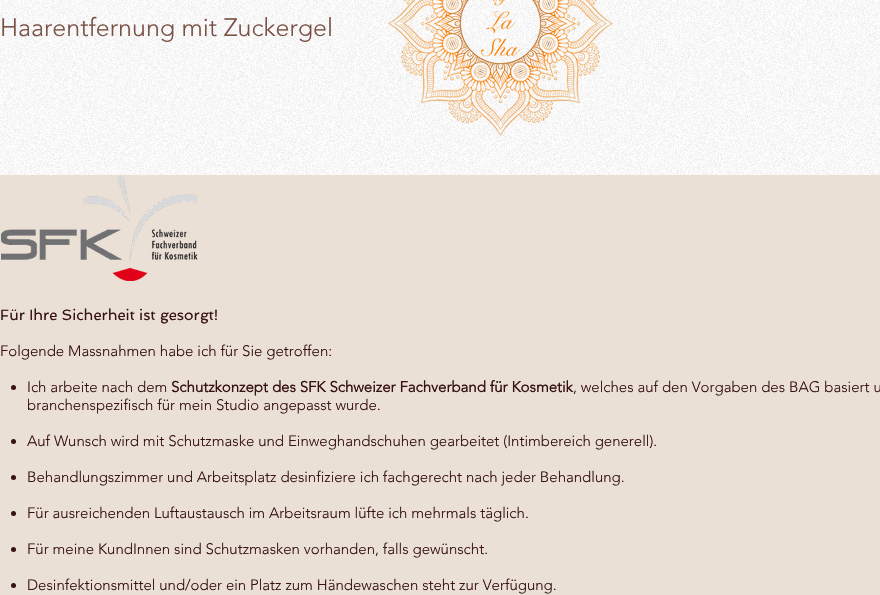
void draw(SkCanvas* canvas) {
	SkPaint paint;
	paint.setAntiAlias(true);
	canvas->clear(0xffebe0d5);
	paint.setColor(0xffffffff);
	canvas->drawRect(SkRect::MakeXYWH(0, 0, 880, 175), paint);
	canvas->drawImageRect(SkImages::DeferredFromEncodedData(SkData::MakeFromFileName("img1.png")), SkRect::MakeXYWH(0, 0, 880, 175), SkSamplingOptions());
	SkFont f1(fontMgr->matchFamilyStyle("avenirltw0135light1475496", SkFontStyle(300, SkFontStyle::kNormal_Width, SkFontStyle::kUpright_Slant)), 25);
	f1.setSubpixel(true);
	paint.setColor(0xff7a5144);
	canvas->drawString("Haarentfernung mit Zuckergel", 0, 36, f1, paint);
	canvas->drawImageRect(SkImages::DeferredFromEncodedData(SkData::MakeFromFileName("img2.png")), SkRect::MakeXYWH(388, 0, 225, 136), SkSamplingOptions());
	canvas->drawImageRect(SkImages::DeferredFromEncodedData(SkData::MakeFromFileName("img3.png")), SkRect::MakeXYWH(1, 175, 197, 106), SkSamplingOptions());
	SkFont f2(fontMgr->matchFamilyStyle("Spinnaker", SkFontStyle::Normal()), 15);
	f2.setSubpixel(true);
	paint.setColor(0xff361215);
	canvas->drawString("Für Ihre Sicherheit ist gesorgt!", 0, 320, f2, paint);
	SkFont f3(fontMgr->matchFamilyStyle("avenirltw0135light1475496", SkFontStyle(300, SkFontStyle::kNormal_Width, SkFontStyle::kUpright_Slant)), 15);
	f3.setSubpixel(true);
	canvas->drawString("Folgende Massnahmen habe ich für Sie getroffen:", 0, 356, f3, paint);
	canvas->drawCircle(13.5, 387.5, 2.5, paint);
	canvas->drawString("Ich arbeite nach dem", 27, 392, f3, paint);
	SkFont f4(fontMgr->matchFamilyStyle("avenirltw0135light1475496", SkFontStyle::Bold()), 15);
	f4.setSubpixel(true);
	canvas->drawString("Schutzkonzept des SFK Schweizer Fachverband für Kosmetik", 171, 392, f4, paint);
	canvas->drawString(", welches auf den Vorgaben des BAG basiert u", 573, 392, f3, paint);
	canvas->drawString("branchenspezifisch für mein Studio angepasst wurde.", 27, 410, f3, paint);
	canvas->drawCircle(13.5, 441.5, 2.5, paint);
	canvas->drawString("Auf Wunsch wird mit Schutzmaske und Einweghandschuhen gearbeitet (Intimbereich generell).", 27, 446, f3, paint);
	canvas->drawCircle(13.5, 477.5, 2.5, paint);
	canvas->drawString("Behandlungszimmer und Arbeitsplatz desinfiziere ich fachgerecht nach jeder Behandlung.", 27, 482, f3, paint);
	canvas->drawCircle(13.5, 513.5, 2.5, paint);
	canvas->drawString("Für ausreichenden Luftaustausch im Arbeitsraum lüfte ich mehrmals täglich.", 27, 518, f3, paint);
	canvas->drawCircle(13.5, 549.5, 2.5, paint);
	canvas->drawString("Für meine KundInnen sind Schutzmasken vorhanden, falls gewünscht.", 27, 554, f3, paint);
	canvas->drawCircle(13.5, 585.5, 2.5, paint);
	canvas->drawString("Desinfektionsmittel und/oder ein Platz zum Händewaschen steht zur Verfügung.", 27, 590, f3, paint);
}
